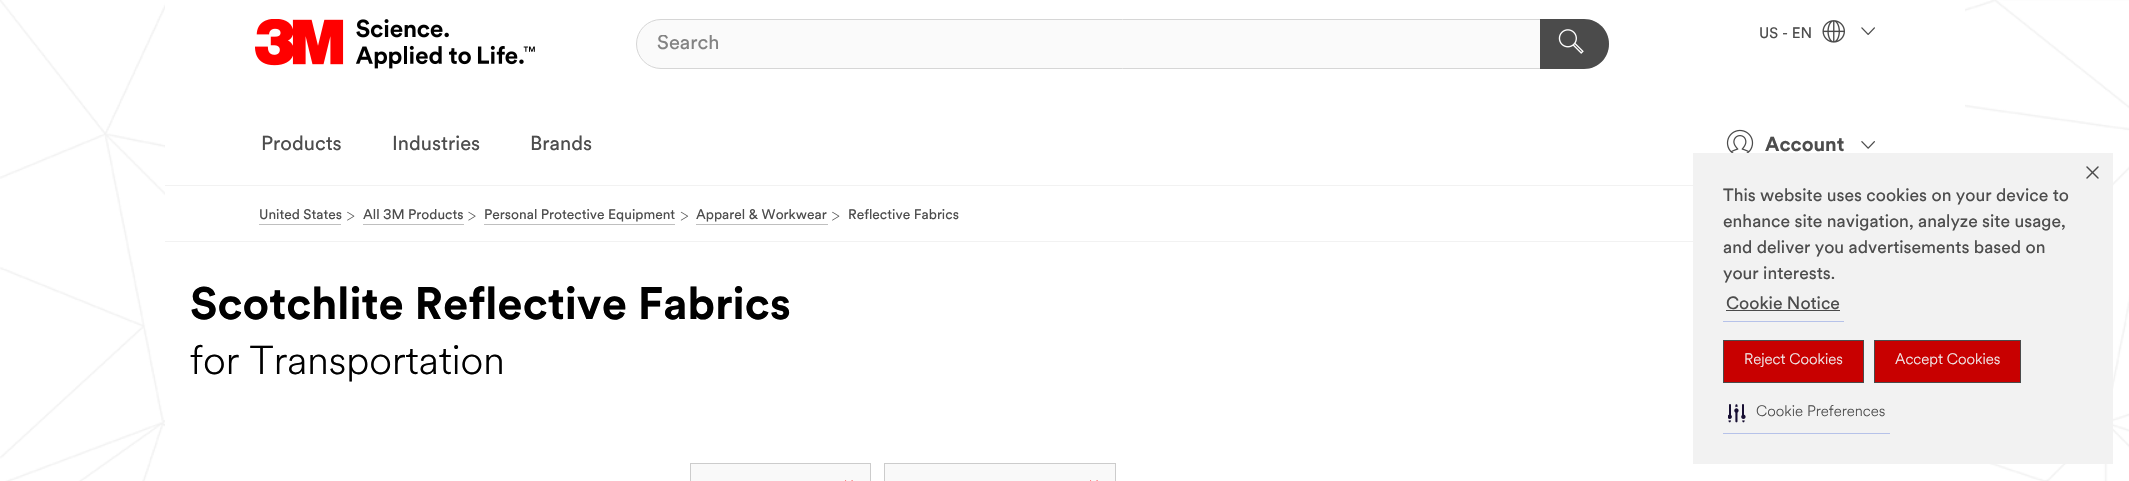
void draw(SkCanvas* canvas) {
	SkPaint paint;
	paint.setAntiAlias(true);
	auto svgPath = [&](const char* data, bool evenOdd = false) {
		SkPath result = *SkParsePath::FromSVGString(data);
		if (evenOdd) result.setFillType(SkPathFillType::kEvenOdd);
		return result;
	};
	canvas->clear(0xffffffff);
	canvas->drawImageRect(SkImages::DeferredFromEncodedData(SkData::MakeFromFileName("img1.png")), SkRect::MakeXYWH(0, 0, 2129, 481), SkSamplingOptions());
	paint.setColor(0xffffffff);
	canvas->drawRect(SkRect::MakeXYWH(165, 0, 1800, 481), paint);
	paint.setColor(0xfff2f2f2);
	canvas->drawRect(SkRect::MakeXYWH(165, 185, 1528, 1), paint);
	SkFont f1(fontMgr->matchFamilyStyle("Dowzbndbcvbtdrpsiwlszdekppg", SkFontStyle::Normal()), 15);
	f1.setSubpixel(true);
	paint.setColor(0xff4d4d4d);
	canvas->drawString("US - EN", 1759, 38, f1, paint);
	canvas->drawImageRect(SkImages::DeferredFromEncodedData(SkData::MakeFromFileName("img2.png")), SkRect::MakeXYWH(1822, 20, 23, 23), SkSamplingOptions());
	canvas->drawImageRect(SkImages::DeferredFromEncodedData(SkData::MakeFromFileName("img3.png")), SkRect::MakeXYWH(1861, 27, 14, 8), SkSamplingOptions());
	SkFont f2(fontMgr->matchFamilyStyle("Dowzbndbcvbtdrpsiwlszdekppg", SkFontStyle::Normal()), 20);
	f2.setSubpixel(true);
	canvas->drawString("Products", 261, 150, f2, paint);
	canvas->drawString("Industries", 392, 150, f2, paint);
	canvas->drawString("Brands", 530, 150, f2, paint);
	canvas->drawImageRect(SkImages::DeferredFromEncodedData(SkData::MakeFromFileName("img4.png")), SkRect::MakeXYWH(1726, 129, 28, 24), SkSamplingOptions());
	SkFont f3(fontMgr->matchFamilyStyle("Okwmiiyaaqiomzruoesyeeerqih", SkFontStyle::Bold()), 20);
	f3.setSubpixel(true);
	canvas->drawString("Account", 1765, 151, f3, paint);
	canvas->drawImageRect(SkImages::DeferredFromEncodedData(SkData::MakeFromFileName("img5.png")), SkRect::MakeXYWH(1861, 141, 14, 8), SkSamplingOptions());
	canvas->drawImageRect(SkImages::DeferredFromEncodedData(SkData::MakeFromFileName("img6.png")), SkRect::MakeXYWH(255, 19, 280, 50), SkSamplingOptions());
	paint.setColor(0xfffafafa);
	canvas->drawRoundRect(SkRect::MakeXYWH(636.5, 19.5, 972, 49), 24.5, 24.5, paint);
	paint.setStroke(true);
	paint.setStrokeWidth(1);
	paint.setColor(0xffd6d6d6);
	canvas->drawRoundRect(SkRect::MakeXYWH(636.5, 19.5, 972, 49), 24.5, 24.5, paint);
	canvas->save();
	canvas->clipRect(SkRect::MakeXYWH(656, 35, 872, 20));
	paint.setStroke(false);
	paint.setColor(0xff838383);
	canvas->drawString("Search", 657, 49, f2, paint);
	canvas->restore();
	paint.setColor(0xff4b4b4b);
	canvas->drawPath(svgPath("M1540 19H1584C1598 19 1609 30 1609 44C1609 58 1598 69 1584 69H1540Z"), paint);
	canvas->drawImageRect(SkImages::DeferredFromEncodedData(SkData::MakeFromFileName("img7.png")), SkRect::MakeXYWH(1558, 29, 26, 25), SkSamplingOptions());
	paint.setColor(0xfff2f2f2);
	canvas->drawRect(SkRect::MakeXYWH(165, 241, 1528, 1), paint);
	SkFont f4(fontMgr->matchFamilyStyle("Dowzbndbcvbtdrpsiwlszdekppg", SkFontStyle::Normal()), 13.75);
	f4.setSubpixel(true);
	paint.setColor(0xff4d4d4d);
	canvas->drawString("United States", 259, 219, f4, paint);
	paint.setColor(0xffbfbfbf);
	canvas->drawRect(SkRect::MakeXYWH(259, 224, 82, 1), paint);
	canvas->drawImageRect(SkImages::DeferredFromEncodedData(SkData::MakeFromFileName("img8.png")), SkRect::MakeXYWH(347, 211, 8, 10), SkSamplingOptions());
	paint.setColor(0xff4d4d4d);
	canvas->drawString("All 3M Products", 363, 219, f4, paint);
	paint.setColor(0xffbfbfbf);
	canvas->drawRect(SkRect::MakeXYWH(363, 224, 101, 1), paint);
	canvas->drawImageRect(SkImages::DeferredFromEncodedData(SkData::MakeFromFileName("img9.png")), SkRect::MakeXYWH(468, 211, 8, 10), SkSamplingOptions());
	paint.setColor(0xff4d4d4d);
	canvas->drawString("Personal Protective Equipment", 484, 219, f4, paint);
	paint.setColor(0xffbfbfbf);
	canvas->drawRect(SkRect::MakeXYWH(484, 224, 191, 1), paint);
	canvas->drawImageRect(SkImages::DeferredFromEncodedData(SkData::MakeFromFileName("img10.png")), SkRect::MakeXYWH(680, 211, 9, 10), SkSamplingOptions());
	paint.setColor(0xff4d4d4d);
	canvas->drawString("Apparel & Workwear", 696, 219, f4, paint);
	paint.setColor(0xffbfbfbf);
	canvas->drawRect(SkRect::MakeXYWH(696, 224, 132, 1), paint);
	canvas->drawImageRect(SkImages::DeferredFromEncodedData(SkData::MakeFromFileName("img8.png")), SkRect::MakeXYWH(832, 211, 8, 10), SkSamplingOptions());
	paint.setColor(0xff4d4d4d);
	canvas->drawString("Reflective Fabrics", 848, 219, f4, paint);
	SkFont f5(fontMgr->matchFamilyStyle("Okwmiiyaaqiomzruoesyeeerqih", SkFontStyle::Bold()), 45);
	f5.setSubpixel(true);
	paint.setColor(0xff000000);
	canvas->drawString("Scotchlite Reflective Fabrics", 190, 319, f5, paint);
	SkFont f6(fontMgr->matchFamilyStyle("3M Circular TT", SkFontStyle(300, SkFontStyle::kNormal_Width, SkFontStyle::kUpright_Slant)), 40);
	f6.setSubpixel(true);
	canvas->drawString("for Transportation", 190, 374, f6, paint);
	paint.setColor(0xfff9f9f9);
	canvas->drawRect(SkRect::MakeXYWH(690.5, 463.5, 180, 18), paint);
	paint.setStroke(true);
	paint.setColor(0xffcccccc);
	canvas->drawRect(SkRect::MakeXYWH(690.5, 463.5, 180, 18), paint);
	canvas->drawImageRect(SkImages::DeferredFromEncodedData(SkData::MakeFromFileName("img11.png")), SkRect::MakeXYWH(845, 480, 8, 1), SkSamplingOptions());
	paint.setStroke(false);
	paint.setColor(0xfff9f9f9);
	canvas->drawRect(SkRect::MakeXYWH(884.5, 463.5, 231, 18), paint);
	paint.setStroke(true);
	paint.setColor(0xffcccccc);
	canvas->drawRect(SkRect::MakeXYWH(884.5, 463.5, 231, 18), paint);
	canvas->drawImageRect(SkImages::DeferredFromEncodedData(SkData::MakeFromFileName("img11.png")), SkRect::MakeXYWH(1090, 480, 8, 1), SkSamplingOptions());
	paint.setStroke(false);
	paint.setColor(0xfff2f2f2);
	canvas->drawRect(SkRect::MakeXYWH(1693, 153, 420, 311), paint);
	SkFont f7(fontMgr->matchFamilyStyle("Dowzbndbcvbtdrpsiwlszdekppg", SkFontStyle::Normal()), 17.5);
	f7.setSubpixel(true);
	paint.setColor(0xff4d4d4d);
	canvas->drawString("This website uses cookies on your device to", 1723, 201, f7, paint);
	canvas->drawString("enhance site navigation, analyze site usage,", 1723, 227, f7, paint);
	canvas->drawString("and deliver you advertisements based on", 1723, 253, f7, paint);
	canvas->drawString("your interests.", 1723, 279, f7, paint);
	paint.setColor(0xffb6c2e9);
	canvas->drawRect(SkRect::MakeXYWH(1723, 321, 121, 1), paint);
	paint.setColor(0xff4d4d4d);
	canvas->drawString("Cookie Notice", 1726, 309, f7, paint);
	paint.setColor(0xff4b4b4b);
	canvas->drawRect(SkRect::MakeXYWH(1726, 310, 114, 1), paint);
	canvas->drawImageRect(SkImages::DeferredFromEncodedData(SkData::MakeFromFileName("img12.png")), SkRect::MakeXYWH(2086, 166, 13, 13), SkSamplingOptions());
	paint.setColor(0xffc80000);
	canvas->drawRect(SkRect::MakeXYWH(1723.5, 340.5, 140, 42), paint);
	paint.setStroke(true);
	paint.setColor(0xff4b4b4b);
	canvas->drawRect(SkRect::MakeXYWH(1723.5, 340.5, 140, 42), paint);
	SkFont f8(fontMgr->matchFamilyStyle("3M Circular TT", SkFontStyle(300, SkFontStyle::kNormal_Width, SkFontStyle::kUpright_Slant)), 15);
	f8.setSubpixel(true);
	paint.setStroke(false);
	paint.setColor(0xfff2f2f2);
	canvas->drawString("Reject Cookies", 1744, 364, f8, paint);
	paint.setColor(0xffc80000);
	canvas->drawRect(SkRect::MakeXYWH(1874.5, 340.5, 146, 42), paint);
	paint.setStroke(true);
	paint.setColor(0xff4b4b4b);
	canvas->drawRect(SkRect::MakeXYWH(1874.5, 340.5, 146, 42), paint);
	paint.setStroke(false);
	paint.setColor(0xfff2f2f2);
	canvas->drawString("Accept Cookies", 1895, 364, f8, paint);
	paint.setColor(0xffb6c2e9);
	canvas->drawRect(SkRect::MakeXYWH(1723, 433, 167, 1), paint);
	canvas->drawImageRect(SkImages::DeferredFromEncodedData(SkData::MakeFromFileName("img13.png")), SkRect::MakeXYWH(1728, 404, 18, 19), SkSamplingOptions());
	paint.setColor(0xff4d4d4d);
	canvas->drawString("Cookie Preferences", 1756, 416, f8, paint);
}
